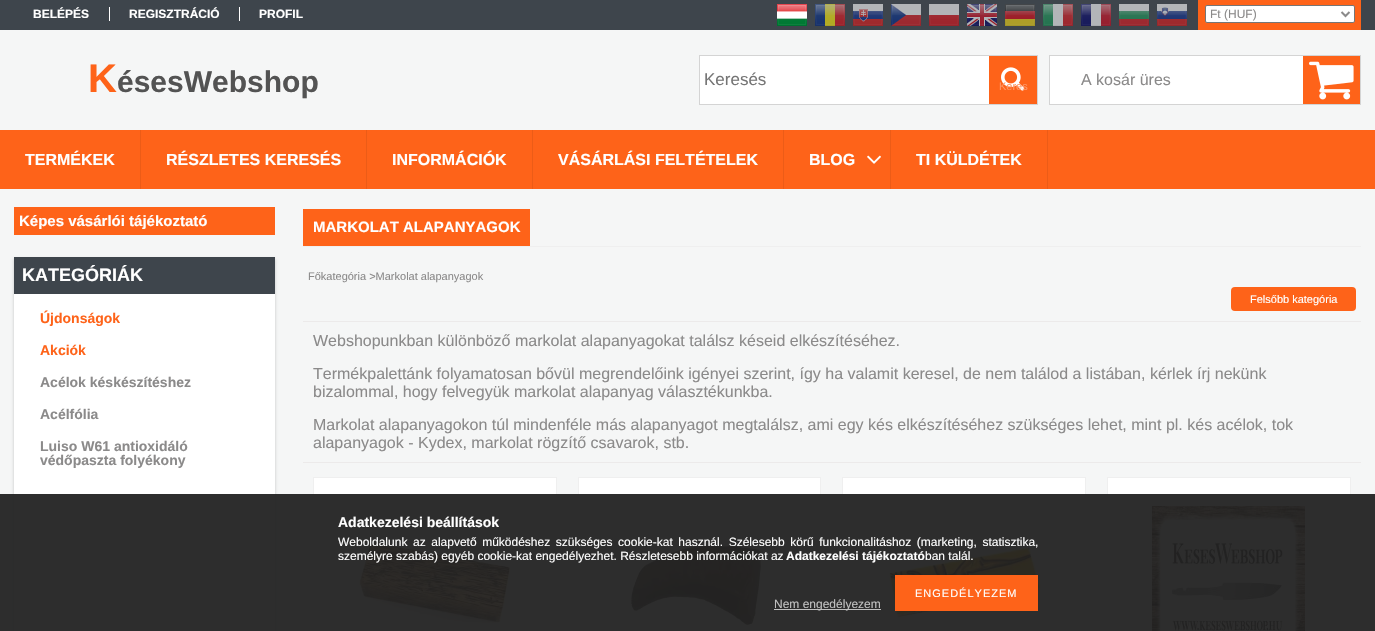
void draw(SkCanvas* canvas) {
	SkPaint paint;
	paint.setAntiAlias(true);
	auto spacedText = [&](const char* s, float x, float y, const SkFont& font, const SkPaint& ink, float letter, float word) {
		std::vector<SkGlyphID> glyphs(font.countText(s, strlen(s), SkTextEncoding::kUTF8));
		std::vector<float> xs(glyphs.size());
		font.textToGlyphs(s, strlen(s), SkTextEncoding::kUTF8, glyphs);
		font.getXPos(glyphs, xs, x);
		float extra = 0;
		for (size_t i = 0; i < glyphs.size(); i++) {
			xs[i] += extra;
			extra += letter + word * (glyphs[i] == font.unicharToGlyph(' '));
		}
		canvas->drawTextBlob(SkTextBlob::MakeFromPosHGlyphs(glyphs, xs, y, font), 0, 0, ink);
	};
	auto svgPath = [&](const char* data, bool evenOdd = false) {
		SkPath result = *SkParsePath::FromSVGString(data);
		if (evenOdd) result.setFillType(SkPathFillType::kEvenOdd);
		return result;
	};
	canvas->clear(0xfff5f6f6);
	paint.setColor(0xff3e454c);
	canvas->drawRect(SkRect::MakeXYWH(0, 0, 1375, 30), paint);
	SkFont f1(fontMgr->matchFamilyStyle("Liberation Sans", SkFontStyle::Bold()), 12);
	f1.setSubpixel(true);
	paint.setColor(0xffffffff);
	canvas->drawString("BELÉPÉS", 33, 18, f1, paint);
	canvas->drawRect(SkRect::MakeXYWH(109, 7, 1, 14), paint);
	canvas->drawString("REGISZTRÁCIÓ", 129, 18, f1, paint);
	canvas->drawRect(SkRect::MakeXYWH(239, 7, 1, 14), paint);
	canvas->drawString("PROFIL", 259, 18, f1, paint);
	canvas->drawImageRect(SkImages::DeferredFromEncodedData(SkData::MakeFromFileName("img1.png")), SkRect::MakeXYWH(777, 4, 30, 22), SkSamplingOptions());
	canvas->drawImageRect(SkImages::DeferredFromEncodedData(SkData::MakeFromFileName("img2.png")), SkRect::MakeXYWH(815, 4, 30, 22), SkSamplingOptions());
	canvas->drawImageRect(SkImages::DeferredFromEncodedData(SkData::MakeFromFileName("img3.png")), SkRect::MakeXYWH(853, 4, 30, 22), SkSamplingOptions());
	canvas->drawImageRect(SkImages::DeferredFromEncodedData(SkData::MakeFromFileName("img4.png")), SkRect::MakeXYWH(891, 4, 30, 22), SkSamplingOptions());
	canvas->drawImageRect(SkImages::DeferredFromEncodedData(SkData::MakeFromFileName("img5.png")), SkRect::MakeXYWH(929, 4, 30, 22), SkSamplingOptions());
	canvas->drawImageRect(SkImages::DeferredFromEncodedData(SkData::MakeFromFileName("img6.png")), SkRect::MakeXYWH(967, 4, 30, 22), SkSamplingOptions());
	canvas->drawImageRect(SkImages::DeferredFromEncodedData(SkData::MakeFromFileName("img7.png")), SkRect::MakeXYWH(1005, 4, 30, 22), SkSamplingOptions());
	canvas->drawImageRect(SkImages::DeferredFromEncodedData(SkData::MakeFromFileName("img8.png")), SkRect::MakeXYWH(1043, 4, 30, 22), SkSamplingOptions());
	canvas->drawImageRect(SkImages::DeferredFromEncodedData(SkData::MakeFromFileName("img9.png")), SkRect::MakeXYWH(1081, 4, 30, 22), SkSamplingOptions());
	canvas->drawImageRect(SkImages::DeferredFromEncodedData(SkData::MakeFromFileName("img10.png")), SkRect::MakeXYWH(1119, 4, 30, 22), SkSamplingOptions());
	canvas->drawImageRect(SkImages::DeferredFromEncodedData(SkData::MakeFromFileName("img11.png")), SkRect::MakeXYWH(1157, 4, 30, 22), SkSamplingOptions());
	paint.setColor(0xfffe6319);
	canvas->drawRect(SkRect::MakeXYWH(1198, 0, 163, 30), paint);
	paint.setColor(0xffffffff);
	canvas->drawRoundRect(SkRect::MakeXYWH(1205.5, 5.5, 149, 17), 1.5, 1.5, paint);
	paint.setStroke(true);
	paint.setStrokeWidth(1);
	paint.setColor(0xff767676);
	canvas->drawRoundRect(SkRect::MakeXYWH(1205.5, 5.5, 149, 17), 1.5, 1.5, paint);
	paint.setStrokeWidth(2);
	paint.setColor(0xff8b8a8a);
	canvas->drawPath(svgPath("M1341.5 12L1345.5 16L1349.5 12"), paint);
	SkFont f2(fontMgr->matchFamilyStyle("Liberation Sans", SkFontStyle::Normal()), 12);
	f2.setSubpixel(true);
	paint.setStroke(false);
	canvas->drawString("Ft (HUF)", 1210, 18, f2, paint);
	SkFont f3(fontMgr->matchFamilyStyle("Liberation Sans", SkFontStyle::Bold()), 40);
	f3.setSubpixel(true);
	paint.setColor(0xfffe6319);
	canvas->drawString("K", 88, 92, f3, paint);
	SkFont f4(fontMgr->matchFamilyStyle("Liberation Sans", SkFontStyle::Bold()), 30);
	f4.setSubpixel(true);
	paint.setColor(0xff535353);
	canvas->drawString("ésesWebshop", 117, 92, f4, paint);
	paint.setColor(0xffffffff);
	canvas->drawRect(SkRect::MakeXYWH(700, 56, 289, 48), paint);
	paint.setStroke(true);
	paint.setStrokeWidth(1);
	paint.setColor(0xffd4d4d4);
	canvas->drawRect(SkRect::MakeXYWH(699.5, 55.5, 338, 49), paint);
	SkFont f5(fontMgr->matchFamilyStyle("Liberation Sans", SkFontStyle::Normal()), 17);
	f5.setSubpixel(true);
	paint.setStroke(false);
	paint.setColor(0xff757575);
	canvas->drawString("Keresés", 704, 85, f5, paint);
	paint.setColor(0xfffe6319);
	canvas->drawRect(SkRect::MakeXYWH(989, 56, 48, 48), paint);
	canvas->drawImageRect(SkImages::DeferredFromEncodedData(SkData::MakeFromFileName("img12.png")), SkRect::MakeXYWH(1001, 67, 24, 24), SkSamplingOptions());
	SkFont f6(fontMgr->matchFamilyStyle("Liberation Sans", SkFontStyle::Normal()), 11);
	f6.setSubpixel(true);
	paint.setColor(0xfffe9766);
	canvas->drawString("Keres", 999, 90, f6, paint);
	paint.setColor(0xffffffff);
	canvas->drawRect(SkRect::MakeXYWH(1050, 56, 253, 48), paint);
	paint.setStroke(true);
	paint.setColor(0xffd4d4d4);
	canvas->drawRect(SkRect::MakeXYWH(1049.5, 55.5, 311, 49), paint);
	SkFont f7(fontMgr->matchFamilyStyle("Liberation Sans", SkFontStyle::Normal()), 16);
	f7.setSubpixel(true);
	paint.setStroke(false);
	paint.setColor(0xff8b8a8a);
	canvas->drawString("A kosár üres", 1081, 85, f7, paint);
	paint.setColor(0xfffe6319);
	canvas->drawRect(SkRect::MakeXYWH(1303, 56, 57, 48), paint);
	canvas->drawImageRect(SkImages::DeferredFromEncodedData(SkData::MakeFromFileName("img13.png")), SkRect::MakeXYWH(1309, 61, 45, 39), SkSamplingOptions());
	canvas->drawRect(SkRect::MakeXYWH(0, 130, 1375, 59), paint);
	paint.setColor(0xffec5c17);
	canvas->drawRect(SkRect::MakeXYWH(140, 130, 1, 59), paint);
	SkFont f8(fontMgr->matchFamilyStyle("Liberation Sans", SkFontStyle::Bold()), 16);
	f8.setSubpixel(true);
	paint.setColor(0xffffffff);
	canvas->drawString("TERMÉKEK", 25, 165, f8, paint);
	paint.setColor(0xffec5c17);
	canvas->drawRect(SkRect::MakeXYWH(366, 130, 1, 59), paint);
	paint.setColor(0xffffffff);
	canvas->drawString("RÉSZLETES KERESÉS", 166, 165, f8, paint);
	paint.setColor(0xffec5c17);
	canvas->drawRect(SkRect::MakeXYWH(532, 130, 1, 59), paint);
	paint.setColor(0xffffffff);
	canvas->drawString("INFORMÁCIÓK", 392, 165, f8, paint);
	paint.setColor(0xffec5c17);
	canvas->drawRect(SkRect::MakeXYWH(783, 130, 1, 59), paint);
	paint.setColor(0xffffffff);
	canvas->drawString("VÁSÁRLÁSI FELTÉTELEK", 558, 165, f8, paint);
	paint.setColor(0xffec5c17);
	canvas->drawRect(SkRect::MakeXYWH(890, 130, 1, 59), paint);
	paint.setColor(0xffffffff);
	canvas->drawString("BLOG", 809, 165, f8, paint);
	canvas->drawImageRect(SkImages::DeferredFromEncodedData(SkData::MakeFromFileName("img14.png")), SkRect::MakeXYWH(867, 155, 14, 9), SkSamplingOptions());
	paint.setColor(0xffec5c17);
	canvas->drawRect(SkRect::MakeXYWH(1047, 130, 1, 59), paint);
	paint.setColor(0xffffffff);
	canvas->drawString("TI KÜLDÉTEK", 916, 165, f8, paint);
	paint.setColor(0xfffe6319);
	canvas->drawRect(SkRect::MakeXYWH(14, 207, 261, 28), paint);
	SkFont f9(fontMgr->matchFamilyStyle("Liberation Sans", SkFontStyle::Bold()), 15);
	f9.setSubpixel(true);
	paint.setColor(0xffffffff);
	canvas->drawString("Képes vásárlói tájékoztató", 19, 226, f9, paint);
	paint.setColor(0x33000000);
	paint.setMaskFilter(SkMaskFilter::MakeBlur(kNormal_SkBlurStyle, 1.5));
	canvas->drawRect(SkRect::MakeXYWH(14, 259, 261, 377), paint);
	paint.setMaskFilter(nullptr);
	paint.setColor(0xff3e454c);
	canvas->drawRect(SkRect::MakeXYWH(14, 257, 261, 37), paint);
	SkFont f10(fontMgr->matchFamilyStyle("Liberation Sans", SkFontStyle::Bold()), 18);
	f10.setSubpixel(true);
	paint.setColor(0xffffffff);
	canvas->drawString("KATEGÓRIÁK", 22, 281, f10, paint);
	canvas->drawRect(SkRect::MakeXYWH(14, 294, 261, 337), paint);
	SkFont f11(fontMgr->matchFamilyStyle("Liberation Sans", SkFontStyle::Bold()), 14);
	f11.setSubpixel(true);
	paint.setColor(0xfffe6319);
	canvas->drawString("Újdonságok", 40, 323, f11, paint);
	canvas->drawString("Akciók", 40, 355, f11, paint);
	paint.setColor(0xff8b8a8a);
	canvas->drawString("Acélok késkészítéshez", 40, 387, f11, paint);
	canvas->drawString("Acélfólia", 40, 419, f11, paint);
	canvas->drawString("Luiso W61 antioxidáló", 40, 451, f11, paint);
	canvas->drawString("védőpaszta folyékony", 40, 465, f11, paint);
	paint.setColor(0xffefefef);
	canvas->drawRect(SkRect::MakeXYWH(303, 246, 1058, 1), paint);
	paint.setColor(0xfffe6319);
	canvas->drawRect(SkRect::MakeXYWH(303, 209, 227, 37), paint);
	paint.setColor(0xffffffff);
	canvas->drawString("MARKOLAT ALAPANYAGOK", 313, 232, f9, paint);
	paint.setColor(0xff8b8a8a);
	canvas->drawString("Főkategória >Markolat alapanyagok", 308, 280, f6, paint);
	paint.setColor(0xfffe6319);
	canvas->drawRoundRect(SkRect::MakeXYWH(1231, 287, 125, 24), 4, 4, paint);
	paint.setColor(0xffffffff);
	canvas->drawString("Felsőbb kategória", 1250, 303, f6, paint);
	paint.setColor(0xffeceaea);
	canvas->drawRect(SkRect::MakeXYWH(303, 321, 1058, 1), paint);
	paint.setColor(0xff8b8a8a);
	canvas->drawString("Webshopunkban különböző markolat alapanyagokat találsz késeid elkészítéséhez.", 313, 346, f7, paint);
	canvas->drawString("Termékpalettánk folyamatosan bővül megrendelőink igényei szerint, így ha valamit keresel, de nem találod a listában, kérlek írj nekünk", 313, 379, f7, paint);
	canvas->drawString("bizalommal, hogy felvegyük markolat alapanyag választékunkba.", 313, 397, f7, paint);
	canvas->drawString("Markolat alapanyagokon túl mindenféle más alapanyagot megtalálsz, ami egy kés elkészítéséhez szükséges lehet, mint pl. kés acélok, tok", 313, 430, f7, paint);
	canvas->drawString("alapanyagok - Kydex, markolat rögzítő csavarok, stb.", 313, 448, f7, paint);
	paint.setColor(0xffeceaea);
	canvas->drawRect(SkRect::MakeXYWH(303, 462, 1058, 1), paint);
	paint.setColor(0xffffffff);
	canvas->drawRect(SkRect::MakeXYWH(313.5, 477.5, 243, 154), paint);
	paint.setStroke(true);
	paint.setColor(0xffefefef);
	canvas->drawRect(SkRect::MakeXYWH(313.5, 477.5, 243, 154), paint);
	canvas->drawImageRect(SkImages::DeferredFromEncodedData(SkData::MakeFromFileName("img15.png")), SkRect::MakeXYWH(358, 540, 153, 84), SkSamplingOptions());
	paint.setStroke(false);
	paint.setColor(0xffffffff);
	canvas->drawRect(SkRect::MakeXYWH(578.5, 477.5, 242, 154), paint);
	paint.setStroke(true);
	paint.setColor(0xffefefef);
	canvas->drawRect(SkRect::MakeXYWH(578.5, 477.5, 242, 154), paint);
	canvas->drawImageRect(SkImages::DeferredFromEncodedData(SkData::MakeFromFileName("img16.png")), SkRect::MakeXYWH(631, 542, 132, 84), SkSamplingOptions());
	paint.setStroke(false);
	paint.setColor(0xffffffff);
	canvas->drawRect(SkRect::MakeXYWH(842.5, 477.5, 243, 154), paint);
	paint.setStroke(true);
	paint.setColor(0xffefefef);
	canvas->drawRect(SkRect::MakeXYWH(842.5, 477.5, 243, 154), paint);
	canvas->drawImageRect(SkImages::DeferredFromEncodedData(SkData::MakeFromFileName("img17.png")), SkRect::MakeXYWH(888, 546, 153, 73), SkSamplingOptions());
	paint.setStroke(false);
	paint.setColor(0xffffffff);
	canvas->drawRect(SkRect::MakeXYWH(1107.5, 477.5, 243, 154), paint);
	paint.setStroke(true);
	paint.setColor(0xffefefef);
	canvas->drawRect(SkRect::MakeXYWH(1107.5, 477.5, 243, 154), paint);
	canvas->drawImageRect(SkImages::DeferredFromEncodedData(SkData::MakeFromFileName("img18.png")), SkRect::MakeXYWH(1152, 506, 153, 125), SkSamplingOptions());
	paint.setStroke(false);
	paint.setColor(0xf2222222);
	canvas->drawRect(SkRect::MakeXYWH(0, 494, 1375, 137), paint);
	paint.setColor(0xffffffff);
	canvas->drawString("Adatkezelési beállítások", 338, 527, f11, paint);
	spacedText("Weboldalunk az alapvető működéshez szükséges cookie-kat használ. Szélesebb körű funkcionalitáshoz (marketing, statisztika,", 338, 546, f2, paint, 0, 2.25);
	canvas->drawString("személyre szabás) egyéb cookie-kat engedélyezhet. Részletesebb információkat az", 338, 560, f2, paint);
	canvas->drawString("Adatkezelési tájékoztató", 786, 560, f1, paint);
	canvas->drawString("ban talál.", 925, 560, f2, paint);
	paint.setColor(0xfffe6319);
	canvas->drawRect(SkRect::MakeXYWH(895, 575, 143, 36), paint);
	paint.setColor(0xffffffff);
	spacedText("ENGEDÉLYEZEM", 915, 597, f6, paint, 1, 0);
	paint.setColor(0xffc0c0c0);
	canvas->drawRect(SkRect::MakeXYWH(774, 609, 107, 1), paint);
	canvas->drawString("Nem engedélyezem", 774, 608, f2, paint);
}
